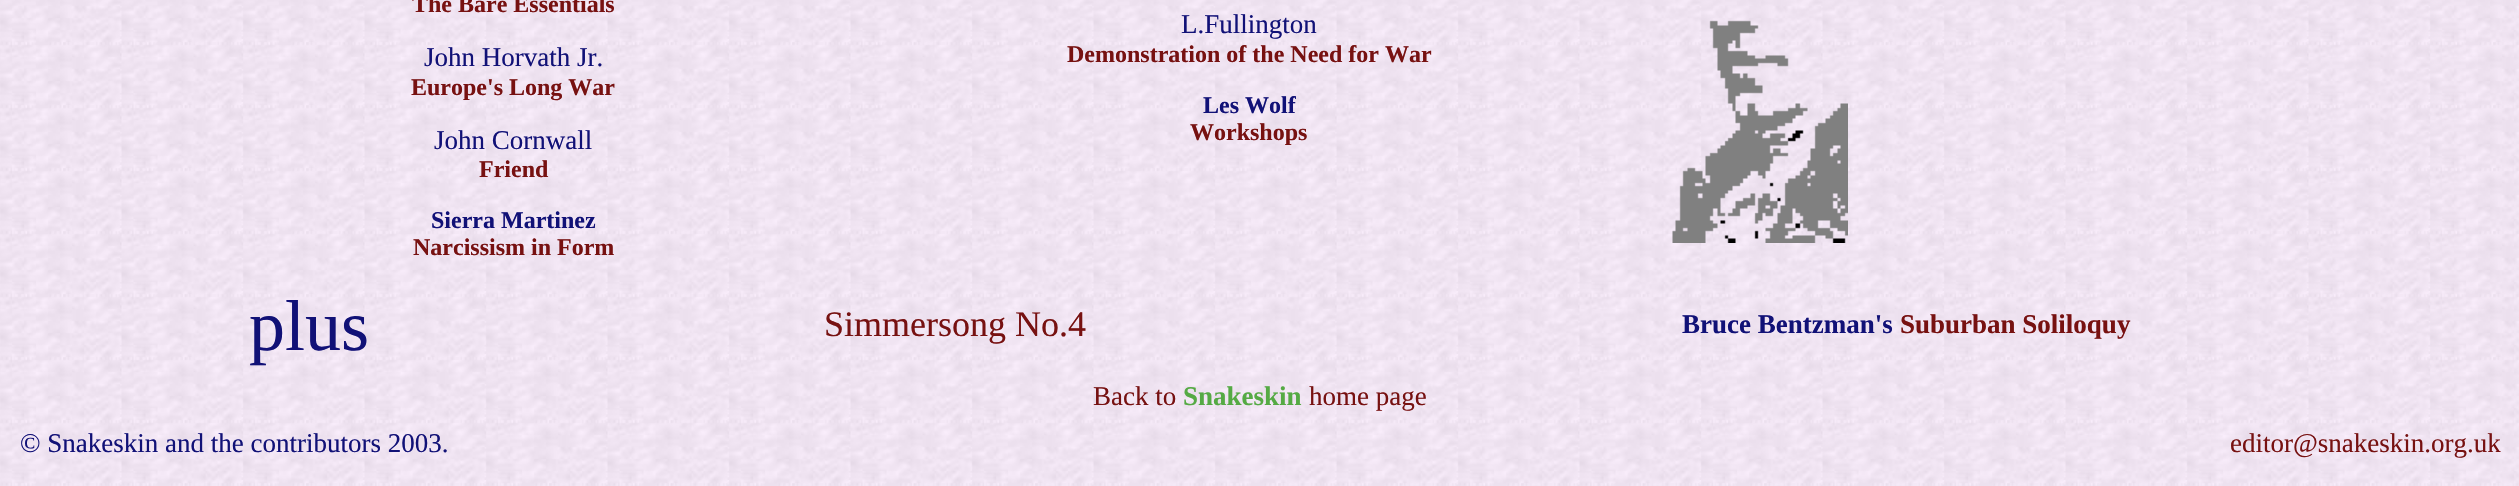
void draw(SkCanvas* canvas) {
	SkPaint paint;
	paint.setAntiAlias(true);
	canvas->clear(0xffffffff);
	canvas->drawImageRect(SkImages::DeferredFromEncodedData(SkData::MakeFromFileName("img1.png")), SkRect::MakeXYWH(0, 0, 2519, 486), SkSamplingOptions());
	SkFont f1(fontMgr->matchFamilyStyle("Liberation Serif", SkFontStyle::Bold()), 24);
	f1.setSubpixel(true);
	paint.setColor(0xff771111);
	canvas->drawString("The Bare Essentials", 412, 12, f1, paint);
	SkFont f2(fontMgr->matchFamilyStyle("Liberation Serif", SkFontStyle::Normal()), 27);
	f2.setSubpixel(true);
	paint.setColor(0xff111177);
	canvas->drawString("John Horvath Jr.", 424, 66, f2, paint);
	paint.setColor(0xff771111);
	canvas->drawString("Europe's Long War", 411, 95, f1, paint);
	paint.setColor(0xff111177);
	canvas->drawString("John Cornwall", 434, 149, f2, paint);
	paint.setColor(0xff771111);
	canvas->drawString("Friend", 479, 177, f1, paint);
	paint.setColor(0xff111177);
	canvas->drawString("Sierra Martinez", 431, 228, f1, paint);
	paint.setColor(0xff771111);
	canvas->drawString("Narcissism in Form", 413, 255, f1, paint);
	paint.setColor(0xff111177);
	canvas->drawString("L.Fullington", 1181, 33, f2, paint);
	paint.setColor(0xff771111);
	canvas->drawString("Demonstration of the Need for War", 1067, 62, f1, paint);
	paint.setColor(0xff111177);
	canvas->drawString("Les Wolf", 1203, 113, f1, paint);
	paint.setColor(0xff771111);
	canvas->drawString("Workshops", 1190, 140, f1, paint);
	canvas->drawImageRect(SkImages::DeferredFromEncodedData(SkData::MakeFromFileName("img2.png")), SkRect::MakeXYWH(1672, 20, 176, 223), SkSamplingOptions());
	SkFont f3(fontMgr->matchFamilyStyle("Liberation Serif", SkFontStyle::Normal()), 72);
	f3.setSubpixel(true);
	paint.setColor(0xff111177);
	canvas->drawString("plus", 249, 350, f3, paint);
	SkFont f4(fontMgr->matchFamilyStyle("Liberation Serif", SkFontStyle::Normal()), 36);
	f4.setSubpixel(true);
	paint.setColor(0xff771111);
	canvas->drawString("Simmersong No.4", 824, 336, f4, paint);
	SkFont f5(fontMgr->matchFamilyStyle("Liberation Serif", SkFontStyle::Bold()), 27);
	f5.setSubpixel(true);
	paint.setColor(0xff111177);
	canvas->drawString("Bruce Bentzman's", 1682, 333, f5, paint);
	paint.setColor(0xff771111);
	canvas->drawString("Suburban Soliloquy", 1900, 333, f5, paint);
	canvas->drawString("Back to", 1093, 405, f2, paint);
	paint.setColor(0xff55aa44);
	canvas->drawString("Snakeskin", 1183, 405, f5, paint);
	paint.setColor(0xff771111);
	canvas->drawString("home page", 1309, 405, f2, paint);
	paint.setColor(0xff111177);
	canvas->drawString("© Snakeskin and the contributors 2003.", 20, 452, f2, paint);
	paint.setColor(0xff771111);
	canvas->drawString("editor@snakeskin.org.uk", 2230, 452, f2, paint);
}
